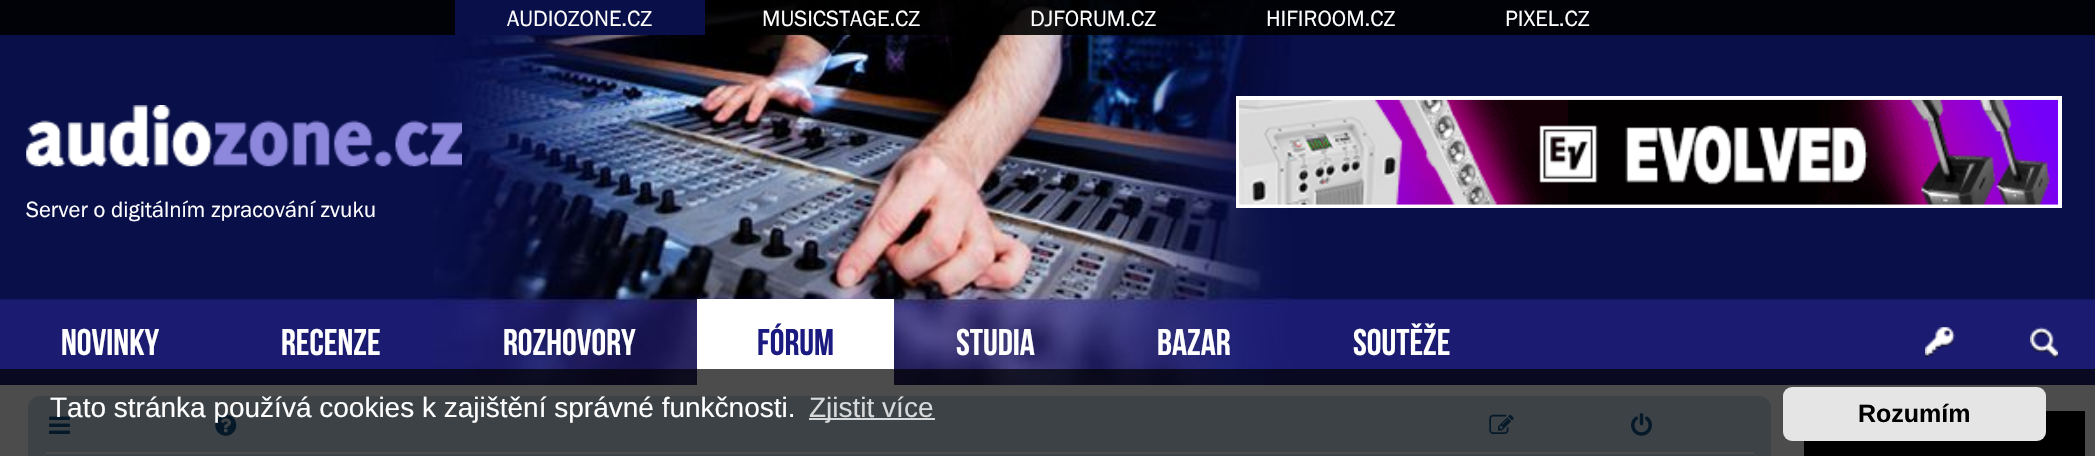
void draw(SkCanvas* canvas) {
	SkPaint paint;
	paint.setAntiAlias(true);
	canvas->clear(0xffffffff);
	canvas->drawImageRect(SkImages::DeferredFromEncodedData(SkData::MakeFromFileName("img1.png")), SkRect::MakeXYWH(0, 0, 2095, 385), SkSamplingOptions());
	canvas->drawImageRect(SkImages::DeferredFromEncodedData(SkData::MakeFromFileName("img2.png")), SkRect::MakeXYWH(434, 0, 858, 385), SkSamplingOptions());
	paint.setColor(0xe6000000);
	canvas->drawRect(SkRect::MakeXYWH(0, 0, 2095, 35), paint);
	paint.setColor(0xff090f49);
	canvas->drawRect(SkRect::MakeXYWH(455, 0, 250, 35), paint);
	SkFont f1(fontMgr->matchFamilyStyle("Franklin Gothic", SkFontStyle::Normal()), 22.75);
	f1.setSubpixel(true);
	paint.setColor(0xffffffff);
	canvas->drawString("AUDIOZONE.CZ", 507, 26, f1, paint);
	canvas->drawString("MUSICSTAGE.CZ", 762, 26, f1, paint);
	canvas->drawString("DJFORUM.CZ", 1030, 26, f1, paint);
	canvas->drawString("HIFIROOM.CZ", 1266, 26, f1, paint);
	canvas->drawString("PIXEL.CZ", 1505, 26, f1, paint);
	paint.setStroke(true);
	paint.setStrokeWidth(4);
	canvas->drawRect(SkRect::MakeXYWH(1238, 98, 822, 108), paint);
	canvas->drawImageRect(SkImages::DeferredFromEncodedData(SkData::MakeFromFileName("img3.png")), SkRect::MakeXYWH(1239, 99, 819, 106), SkSamplingOptions());
	canvas->drawImageRect(SkImages::DeferredFromEncodedData(SkData::MakeFromFileName("img4.png")), SkRect::MakeXYWH(26, 105, 436, 62), SkSamplingOptions());
	paint.setStroke(false);
	canvas->drawString("Server o digitálním zpracování zvuku", 26, 217, f1, paint);
	SkFont f2(fontMgr->matchFamilyStyle("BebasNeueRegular", SkFontStyle::Normal()), 37);
	f2.setSubpixel(true);
	canvas->drawString("NOVINKY", 61, 355, f2, paint);
	canvas->drawString("RECENZE", 281, 355, f2, paint);
	canvas->drawString("ROZHOVORY", 503, 355, f2, paint);
	canvas->drawRect(SkRect::MakeXYWH(697, 299, 197, 86), paint);
	paint.setColor(0xff1b1a80);
	canvas->drawString("FÓRUM", 757, 355, f2, paint);
	paint.setColor(0xffffffff);
	canvas->drawString("STUDIA", 956, 355, f2, paint);
	canvas->drawString("BAZAR", 1157, 355, f2, paint);
	canvas->drawString("SOUTĚŽE", 1353, 355, f2, paint);
	canvas->drawImageRect(SkImages::DeferredFromEncodedData(SkData::MakeFromFileName("img5.png")), SkRect::MakeXYWH(1925, 327, 30, 30), SkSamplingOptions());
	canvas->drawImageRect(SkImages::DeferredFromEncodedData(SkData::MakeFromFileName("img6.png")), SkRect::MakeXYWH(2030, 327, 28, 32), SkSamplingOptions());
	paint.setColor(0xffcadceb);
	canvas->drawRoundRect(SkRect::MakeXYWH(28, 396, 1743, 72), 12, 12, paint);
	canvas->drawImageRect(SkImages::DeferredFromEncodedData(SkData::MakeFromFileName("img7.png")), SkRect::MakeXYWH(49, 416, 21, 18), SkSamplingOptions());
	canvas->drawImageRect(SkImages::DeferredFromEncodedData(SkData::MakeFromFileName("img8.png")), SkRect::MakeXYWH(215, 414, 22, 22), SkSamplingOptions());
	canvas->drawImageRect(SkImages::DeferredFromEncodedData(SkData::MakeFromFileName("img9.png")), SkRect::MakeXYWH(1489, 414, 25, 20), SkSamplingOptions());
	canvas->drawImageRect(SkImages::DeferredFromEncodedData(SkData::MakeFromFileName("img10.png")), SkRect::MakeXYWH(1631, 413, 21, 23), SkSamplingOptions());
	paint.setColor(0xffffffff);
	canvas->drawRect(SkRect::MakeXYWH(46, 452, 1708, 2), paint);
	paint.setColor(0xff000000);
	canvas->drawRect(SkRect::MakeXYWH(1804, 411, 281, 45), paint);
	paint.setColor(0xb3000000);
	canvas->drawRect(SkRect::MakeXYWH(0, 369, 2095, 87), paint);
	SkFont f3(fontMgr->matchFamilyStyle("Liberation Sans", SkFontStyle::Normal()), 28);
	f3.setSubpixel(true);
	paint.setColor(0xffffffff);
	canvas->drawString("Tato stránka používá cookies k zajištění správné funkčnosti.", 50, 417, f3, paint);
	paint.setColor(0xffd8d9da);
	canvas->drawRect(SkRect::MakeXYWH(809, 418, 126, 2), paint);
	canvas->drawString("Zjistit více", 809, 417, f3, paint);
	paint.setColor(0xffe5e5e5);
	canvas->drawRoundRect(SkRect::MakeXYWH(1783, 387, 263, 54), 9, 9, paint);
	SkFont f4(fontMgr->matchFamilyStyle("Liberation Sans", SkFontStyle::Bold()), 25);
	f4.setSubpixel(true);
	paint.setColor(0xff000000);
	canvas->drawString("Rozumím", 1858, 422, f4, paint);
}
